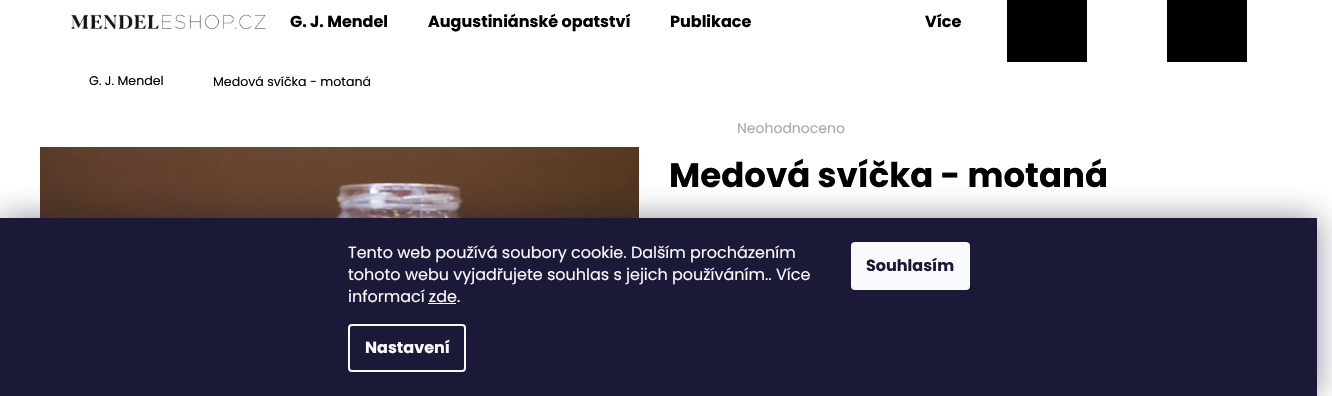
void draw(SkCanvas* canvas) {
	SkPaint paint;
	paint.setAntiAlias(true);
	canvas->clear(0xffffffff);
	canvas->drawImageRect(SkImages::DeferredFromEncodedData(SkData::MakeFromFileName("img1.png")), SkRect::MakeXYWH(70, 14, 196, 17), SkSamplingOptions());
	SkFont f1(fontMgr->matchFamilyStyle("Poppins", SkFontStyle::Bold()), 16);
	f1.setSubpixel(true);
	paint.setColor(0xff000000);
	canvas->drawString("G. J. Mendel", 290, 27, f1, paint);
	canvas->drawString("Augustiniánské opatství", 428, 27, f1, paint);
	canvas->drawString("Publikace", 670, 27, f1, paint);
	canvas->drawString("Více", 925, 27, f1, paint);
	canvas->drawRect(SkRect::MakeXYWH(1007, 0, 80, 62), paint);
	canvas->drawRect(SkRect::MakeXYWH(1167, 0, 80, 62), paint);
	SkFont f2(fontMgr->matchFamilyStyle("Poppins", SkFontStyle::Normal()), 12.6);
	f2.setSubpixel(true);
	canvas->drawString("G. J. Mendel", 89, 85, f2, paint);
	canvas->drawString("Medová svíčka - motaná", 213, 86, f2, paint);
	canvas->drawImageRect(SkImages::DeferredFromEncodedData(SkData::MakeFromFileName("img2.png")), SkRect::MakeXYWH(40, 145, 599, 73), SkSamplingOptions());
	SkFont f3(fontMgr->matchFamilyStyle("Poppins", SkFontStyle::Normal()), 14);
	f3.setSubpixel(true);
	paint.setColor(0xffaaaaaa);
	canvas->drawString("Neohodnoceno", 737, 133, f3, paint);
	SkFont f4(fontMgr->matchFamilyStyle("Poppins", SkFontStyle::Bold()), 34);
	f4.setSubpixel(true);
	paint.setColor(0xff000000);
	canvas->drawString("Medová svíčka - motaná", 669, 187, f4, paint);
	paint.setColor(0x801b1939);
	paint.setMaskFilter(SkMaskFilter::MakeBlur(kNormal_SkBlurStyle, 15));
	canvas->drawRect(SkRect::MakeXYWH(0, 218, 1317, 178), paint);
	paint.setMaskFilter(nullptr);
	paint.setColor(0xff1a1937);
	canvas->drawRect(SkRect::MakeXYWH(0, 218, 1317, 178), paint);
	SkFont f5(fontMgr->matchFamilyStyle("Poppins", SkFontStyle::Normal()), 16);
	f5.setSubpixel(true);
	paint.setColor(0xfff8fafb);
	canvas->drawString("Tento web používá soubory cookie. Dalším procházením", 348, 258, f5, paint);
	canvas->drawString("tohoto webu vyjadřujete souhlas s jejich používáním.. Více", 348, 280, f5, paint);
	canvas->drawString("informací zde.", 348, 302, f5, paint);
	canvas->drawRect(SkRect::MakeXYWH(428, 303, 28, 1), paint);
	paint.setStroke(true);
	paint.setStrokeWidth(2);
	canvas->drawRoundRect(SkRect::MakeXYWH(349, 325, 116, 46), 3, 3, paint);
	paint.setStroke(false);
	canvas->drawString("Nastavení", 365, 353, f1, paint);
	canvas->drawRoundRect(SkRect::MakeXYWH(851, 242, 119, 48), 4, 4, paint);
	paint.setColor(0xff1a1937);
	canvas->drawString("Souhlasím", 866, 271, f1, paint);
}
